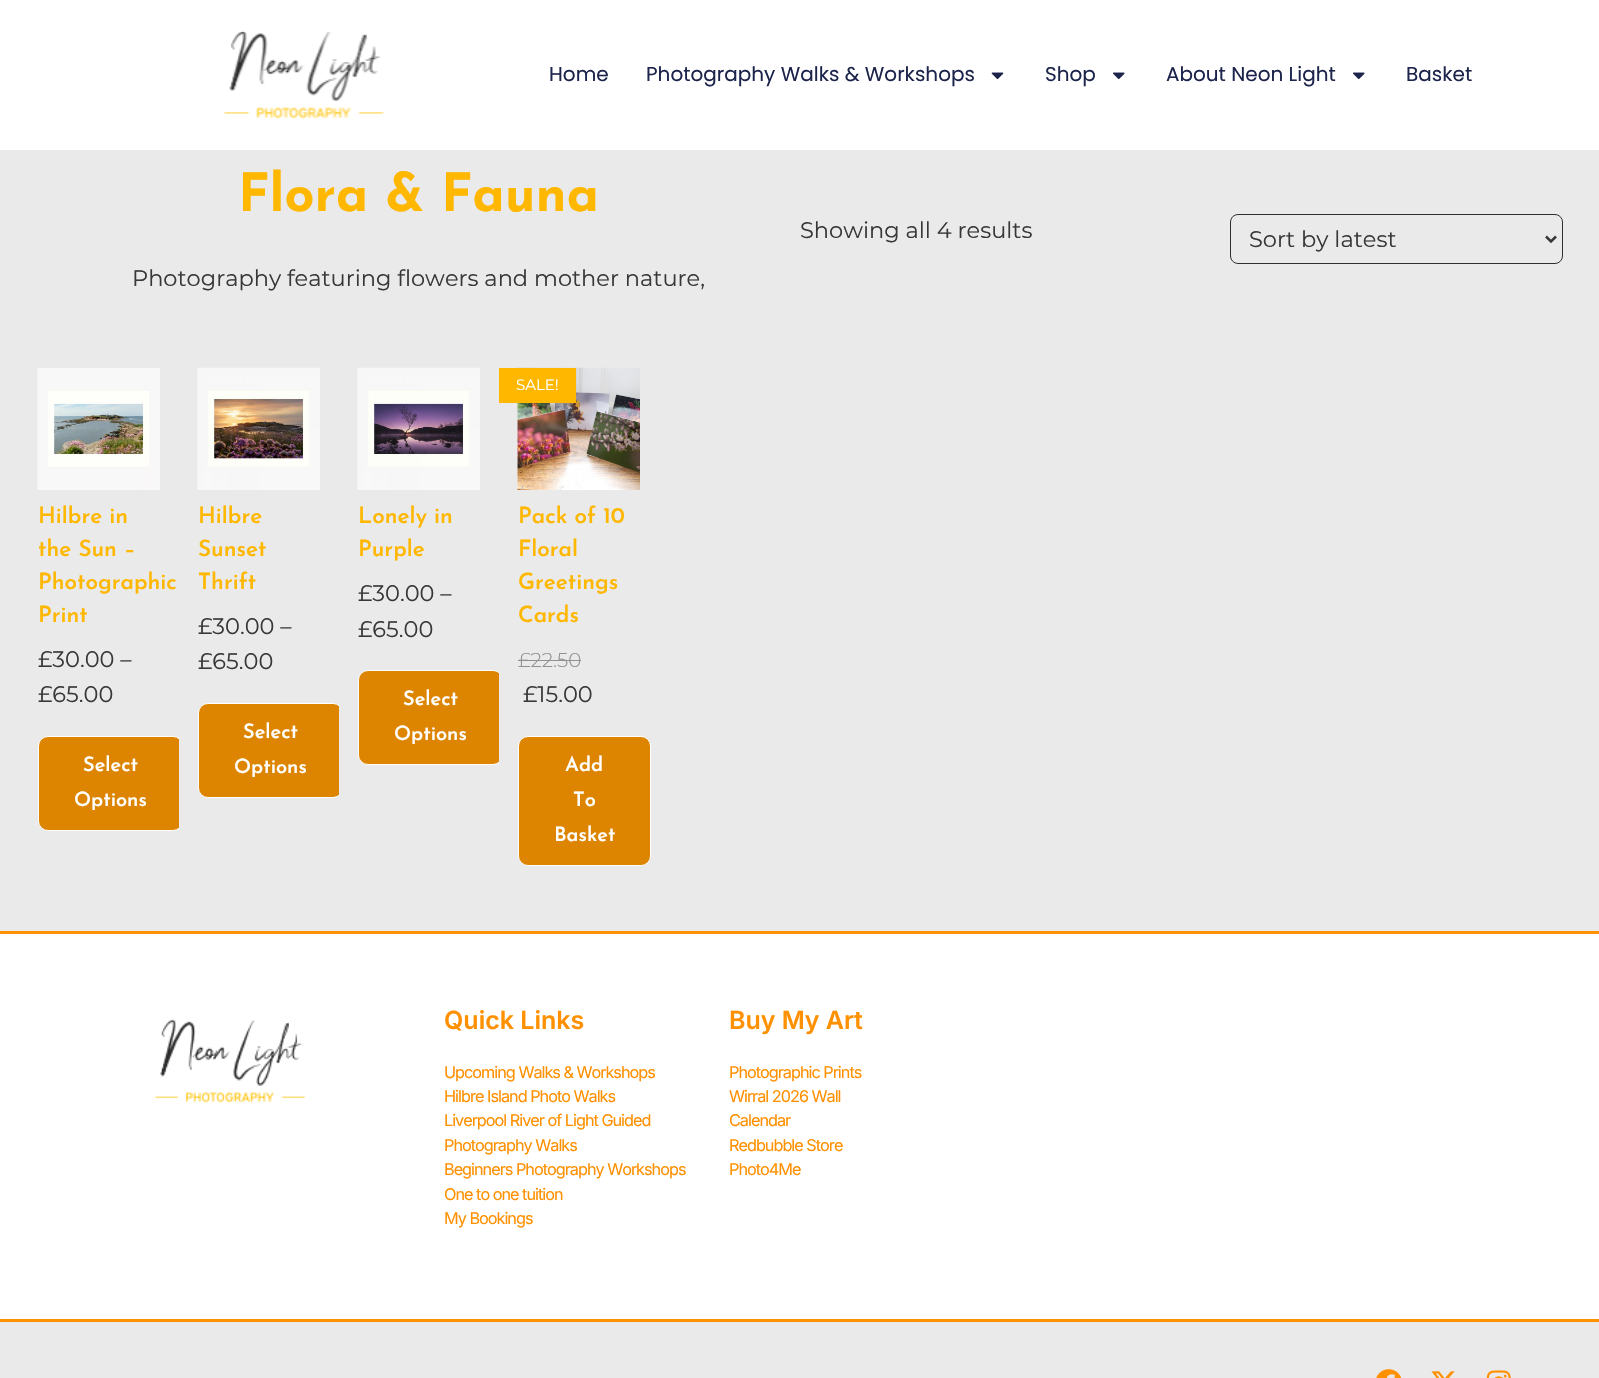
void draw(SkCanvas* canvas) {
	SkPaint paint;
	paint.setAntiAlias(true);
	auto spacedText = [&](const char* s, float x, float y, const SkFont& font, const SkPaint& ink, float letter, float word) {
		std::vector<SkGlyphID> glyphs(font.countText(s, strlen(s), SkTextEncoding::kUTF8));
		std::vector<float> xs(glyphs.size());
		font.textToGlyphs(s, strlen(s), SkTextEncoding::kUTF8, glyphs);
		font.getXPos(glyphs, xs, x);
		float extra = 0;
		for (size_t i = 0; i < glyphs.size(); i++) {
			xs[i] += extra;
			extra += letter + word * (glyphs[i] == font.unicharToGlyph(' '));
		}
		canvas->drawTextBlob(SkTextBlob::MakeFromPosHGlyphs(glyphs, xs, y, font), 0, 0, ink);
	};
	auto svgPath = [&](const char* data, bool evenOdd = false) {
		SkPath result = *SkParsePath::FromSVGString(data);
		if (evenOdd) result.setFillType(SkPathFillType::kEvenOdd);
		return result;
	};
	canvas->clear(0xffeaeaea);
	paint.setColor(0xffffffff);
	canvas->drawRect(SkRect::MakeXYWH(0, 0, 1599, 150), paint);
	canvas->drawImageRect(SkImages::DeferredFromEncodedData(SkData::MakeFromFileName("img1.png")), SkRect::MakeXYWH(223, 30, 162, 89), SkSamplingOptions());
	SkFont f1(fontMgr->matchFamilyStyle("Poppins", SkFontStyle::Normal()), 20);
	f1.setSubpixel(true);
	paint.setColor(0xff1c244b);
	canvas->drawString("Home", 549, 81, f1, paint);
	canvas->drawString("Photography Walks & Workshops", 646, 81, f1, paint);
	canvas->drawImageRect(SkImages::DeferredFromEncodedData(SkData::MakeFromFileName("img2.png")), SkRect::MakeXYWH(991, 72, 13, 7), SkSamplingOptions());
	canvas->drawString("Shop", 1045, 81, f1, paint);
	canvas->drawImageRect(SkImages::DeferredFromEncodedData(SkData::MakeFromFileName("img3.png")), SkRect::MakeXYWH(1113, 72, 12, 7), SkSamplingOptions());
	canvas->drawString("About Neon Light", 1166, 81, f1, paint);
	canvas->drawImageRect(SkImages::DeferredFromEncodedData(SkData::MakeFromFileName("img3.png")), SkRect::MakeXYWH(1353, 72, 12, 7), SkSamplingOptions());
	canvas->drawString("Basket", 1406, 81, f1, paint);
	SkFont f2(fontMgr->matchFamilyStyle("Josefin Sans", SkFontStyle::Bold()), 52.5);
	f2.setSubpixel(true);
	paint.setColor(0xffffb700);
	canvas->drawString("Flora & Fauna", 238, 211, f2, paint);
	SkFont f3(fontMgr->matchFamilyStyle("Montserrat", SkFontStyle::Normal()), 22.5);
	f3.setSubpixel(true);
	paint.setColor(0xff383838);
	canvas->drawString("Photography featuring flowers and mother nature,", 132, 286, f3, paint);
	canvas->drawString("Showing all 4 results", 800, 238, f3, paint);
	paint.setStroke(true);
	paint.setStrokeWidth(1);
	paint.setColor(0xff2f2f2f);
	canvas->drawRoundRect(SkRect::MakeXYWH(1230.5, 214.5, 332, 49), 7.5, 7.5, paint);
	paint.setStrokeWidth(2.5);
	paint.setColor(0xff383838);
	canvas->drawPath(svgPath("M1546 236.5L1551 241.5L1556 236.5"), paint);
	paint.setStroke(false);
	canvas->drawString("Sort by latest", 1249, 247, f3, paint);
	canvas->drawImageRect(SkImages::DeferredFromEncodedData(SkData::MakeFromFileName("img4.png")), SkRect::MakeXYWH(37, 368, 123, 122), SkSamplingOptions());
	SkFont f4(fontMgr->matchFamilyStyle("Josefin Sans", SkFontStyle(600, SkFontStyle::kNormal_Width, SkFontStyle::kUpright_Slant)), 22.5);
	f4.setSubpixel(true);
	paint.setColor(0xffffb700);
	canvas->drawString("Hilbre in", 38, 523, f4, paint);
	canvas->drawString("the Sun –", 38, 556, f4, paint);
	canvas->drawString("Photographic", 38, 589, f4, paint);
	canvas->drawString("Print", 38, 622, f4, paint);
	paint.setColor(0xff383838);
	canvas->drawString("£30.00 –", 38, 667, f3, paint);
	canvas->drawString("£65.00", 38, 702, f3, paint);
	canvas->save();
	canvas->clipRect(SkRect::MakeXYWH(19, 368, 160, 463));
	paint.setColor(0xffdd8500);
	canvas->drawRoundRect(SkRect::MakeXYWH(38.5, 736.5, 144, 94), 9.5, 9.5, paint);
	paint.setStroke(true);
	paint.setStrokeWidth(1);
	paint.setColor(0xffffffff);
	canvas->drawRoundRect(SkRect::MakeXYWH(38.5, 736.5, 144, 94), 9.5, 9.5, paint);
	canvas->restore();
	SkFont f5(fontMgr->matchFamilyStyle("Josefin Sans", SkFontStyle(600, SkFontStyle::kNormal_Width, SkFontStyle::kUpright_Slant)), 20);
	f5.setSubpixel(true);
	paint.setStroke(false);
	canvas->drawString("Select", 83, 771, f5, paint);
	canvas->drawString("Options", 74, 806, f5, paint);
	canvas->drawImageRect(SkImages::DeferredFromEncodedData(SkData::MakeFromFileName("img5.png")), SkRect::MakeXYWH(197, 367, 123, 123), SkSamplingOptions());
	paint.setColor(0xffffb700);
	canvas->drawString("Hilbre", 198, 523, f4, paint);
	canvas->drawString("Sunset", 198, 556, f4, paint);
	canvas->drawString("Thrift", 198, 589, f4, paint);
	paint.setColor(0xff383838);
	canvas->drawString("£30.00 –", 198, 634, f3, paint);
	canvas->drawString("£65.00", 198, 669, f3, paint);
	canvas->save();
	canvas->clipRect(SkRect::MakeXYWH(179, 368, 160, 430));
	paint.setColor(0xffdd8500);
	canvas->drawRoundRect(SkRect::MakeXYWH(198.5, 703.5, 144, 94), 9.5, 9.5, paint);
	paint.setStroke(true);
	paint.setColor(0xffffffff);
	canvas->drawRoundRect(SkRect::MakeXYWH(198.5, 703.5, 144, 94), 9.5, 9.5, paint);
	canvas->restore();
	paint.setStroke(false);
	canvas->drawString("Select", 243, 738, f5, paint);
	canvas->drawString("Options", 234, 773, f5, paint);
	canvas->drawImageRect(SkImages::DeferredFromEncodedData(SkData::MakeFromFileName("img6.png")), SkRect::MakeXYWH(357, 367, 123, 123), SkSamplingOptions());
	paint.setColor(0xffffb700);
	canvas->drawString("Lonely in", 358, 523, f4, paint);
	canvas->drawString("Purple", 358, 556, f4, paint);
	paint.setColor(0xff383838);
	canvas->drawString("£30.00 –", 358, 601, f3, paint);
	canvas->drawString("£65.00", 358, 637, f3, paint);
	canvas->save();
	canvas->clipRect(SkRect::MakeXYWH(339, 368, 160, 397));
	paint.setColor(0xffdd8500);
	canvas->drawRoundRect(SkRect::MakeXYWH(358.5, 670.5, 144, 94), 9.5, 9.5, paint);
	paint.setStroke(true);
	paint.setColor(0xffffffff);
	canvas->drawRoundRect(SkRect::MakeXYWH(358.5, 670.5, 144, 94), 9.5, 9.5, paint);
	canvas->restore();
	paint.setStroke(false);
	canvas->drawString("Select", 403, 705, f5, paint);
	canvas->drawString("Options", 394, 740, f5, paint);
	canvas->drawImageRect(SkImages::DeferredFromEncodedData(SkData::MakeFromFileName("img7.png")), SkRect::MakeXYWH(517, 367, 123, 123), SkSamplingOptions());
	paint.setColor(0xffffb700);
	canvas->drawRect(SkRect::MakeXYWH(499, 368, 77, 35), paint);
	SkFont f6(fontMgr->matchFamilyStyle("Montserrat", SkFontStyle::Normal()), 15);
	f6.setSubpixel(true);
	paint.setColor(0xffffffff);
	canvas->drawString("SALE!", 516, 390, f6, paint);
	paint.setColor(0xffffb700);
	canvas->drawString("Pack of 10", 518, 523, f4, paint);
	canvas->drawString("Floral", 518, 556, f4, paint);
	canvas->drawString("Greetings", 518, 589, f4, paint);
	canvas->drawString("Cards", 518, 622, f4, paint);
	SkFont f7(fontMgr->matchFamilyStyle("Montserrat", SkFontStyle(300, SkFontStyle::kNormal_Width, SkFontStyle::kUpright_Slant)), 20);
	f7.setSubpixel(true);
	paint.setColor(0xff919191);
	canvas->drawString("£22.50", 518, 667, f7, paint);
	canvas->drawRect(SkRect::MakeXYWH(518, 660, 63, 1), paint);
	paint.setColor(0xff383838);
	canvas->drawString("£15.00", 523, 702, f3, paint);
	paint.setColor(0xffdd8500);
	canvas->drawRoundRect(SkRect::MakeXYWH(518.5, 736.5, 132, 129), 9.5, 9.5, paint);
	paint.setStroke(true);
	paint.setColor(0xffffffff);
	canvas->drawRoundRect(SkRect::MakeXYWH(518.5, 736.5, 132, 129), 9.5, 9.5, paint);
	paint.setStroke(false);
	canvas->drawString("Add", 565, 771, f5, paint);
	canvas->drawString("To", 573, 806, f5, paint);
	canvas->drawString("Basket", 554, 841, f5, paint);
	canvas->drawRect(SkRect::MakeXYWH(0, 934, 1599, 385), paint);
	paint.setColor(0xffff9000);
	canvas->drawRect(SkRect::MakeXYWH(0, 931, 1599, 3), paint);
	canvas->drawRect(SkRect::MakeXYWH(0, 1319, 1599, 3), paint);
	canvas->drawImageRect(SkImages::DeferredFromEncodedData(SkData::MakeFromFileName("img8.png")), SkRect::MakeXYWH(155, 1019, 151, 84), SkSamplingOptions());
	SkFont f8(fontMgr->matchFamilyStyle("Inter", SkFontStyle(600, SkFontStyle::kNormal_Width, SkFontStyle::kUpright_Slant)), 25);
	f8.setSubpixel(true);
	canvas->drawString("Quick Links", 444, 1029, f8, paint);
	SkFont f9(fontMgr->matchFamilyStyle("Inter", SkFontStyle::Normal()), 16.25);
	f9.setSubpixel(true);
	spacedText("Upcoming Walks & Workshops", 444, 1078, f9, paint, -1, 0);
	spacedText("Hilbre Island Photo Walks", 444, 1102, f9, paint, -1, 0);
	spacedText("Liverpool River of Light Guided", 444, 1126, f9, paint, -1, 0);
	spacedText("Photography Walks", 444, 1151, f9, paint, -1, 0);
	spacedText("Beginners Photography Workshops", 444, 1175, f9, paint, -1, 0);
	spacedText("One to one tuition", 444, 1200, f9, paint, -1, 0);
	spacedText("My Bookings", 444, 1224, f9, paint, -1, 0);
	canvas->drawString("Buy My Art", 729, 1029, f8, paint);
	spacedText("Photographic Prints", 729, 1078, f9, paint, -1, 0);
	spacedText("Wirral 2026 Wall", 729, 1102, f9, paint, -1, 0);
	spacedText("Calendar", 729, 1126, f9, paint, -1, 0);
	spacedText("Redbubble Store", 729, 1151, f9, paint, -1, 0);
	spacedText("Photo4Me", 729, 1175, f9, paint, -1, 0);
	canvas->drawImageRect(SkImages::DeferredFromEncodedData(SkData::MakeFromFileName("img9.png")), SkRect::MakeXYWH(1376, 1369, 26, 9), SkSamplingOptions());
	canvas->drawImageRect(SkImages::DeferredFromEncodedData(SkData::MakeFromFileName("img10.png")), SkRect::MakeXYWH(1431, 1371, 24, 7), SkSamplingOptions());
	canvas->drawImageRect(SkImages::DeferredFromEncodedData(SkData::MakeFromFileName("img11.png")), SkRect::MakeXYWH(1486, 1370, 25, 8), SkSamplingOptions());
}
